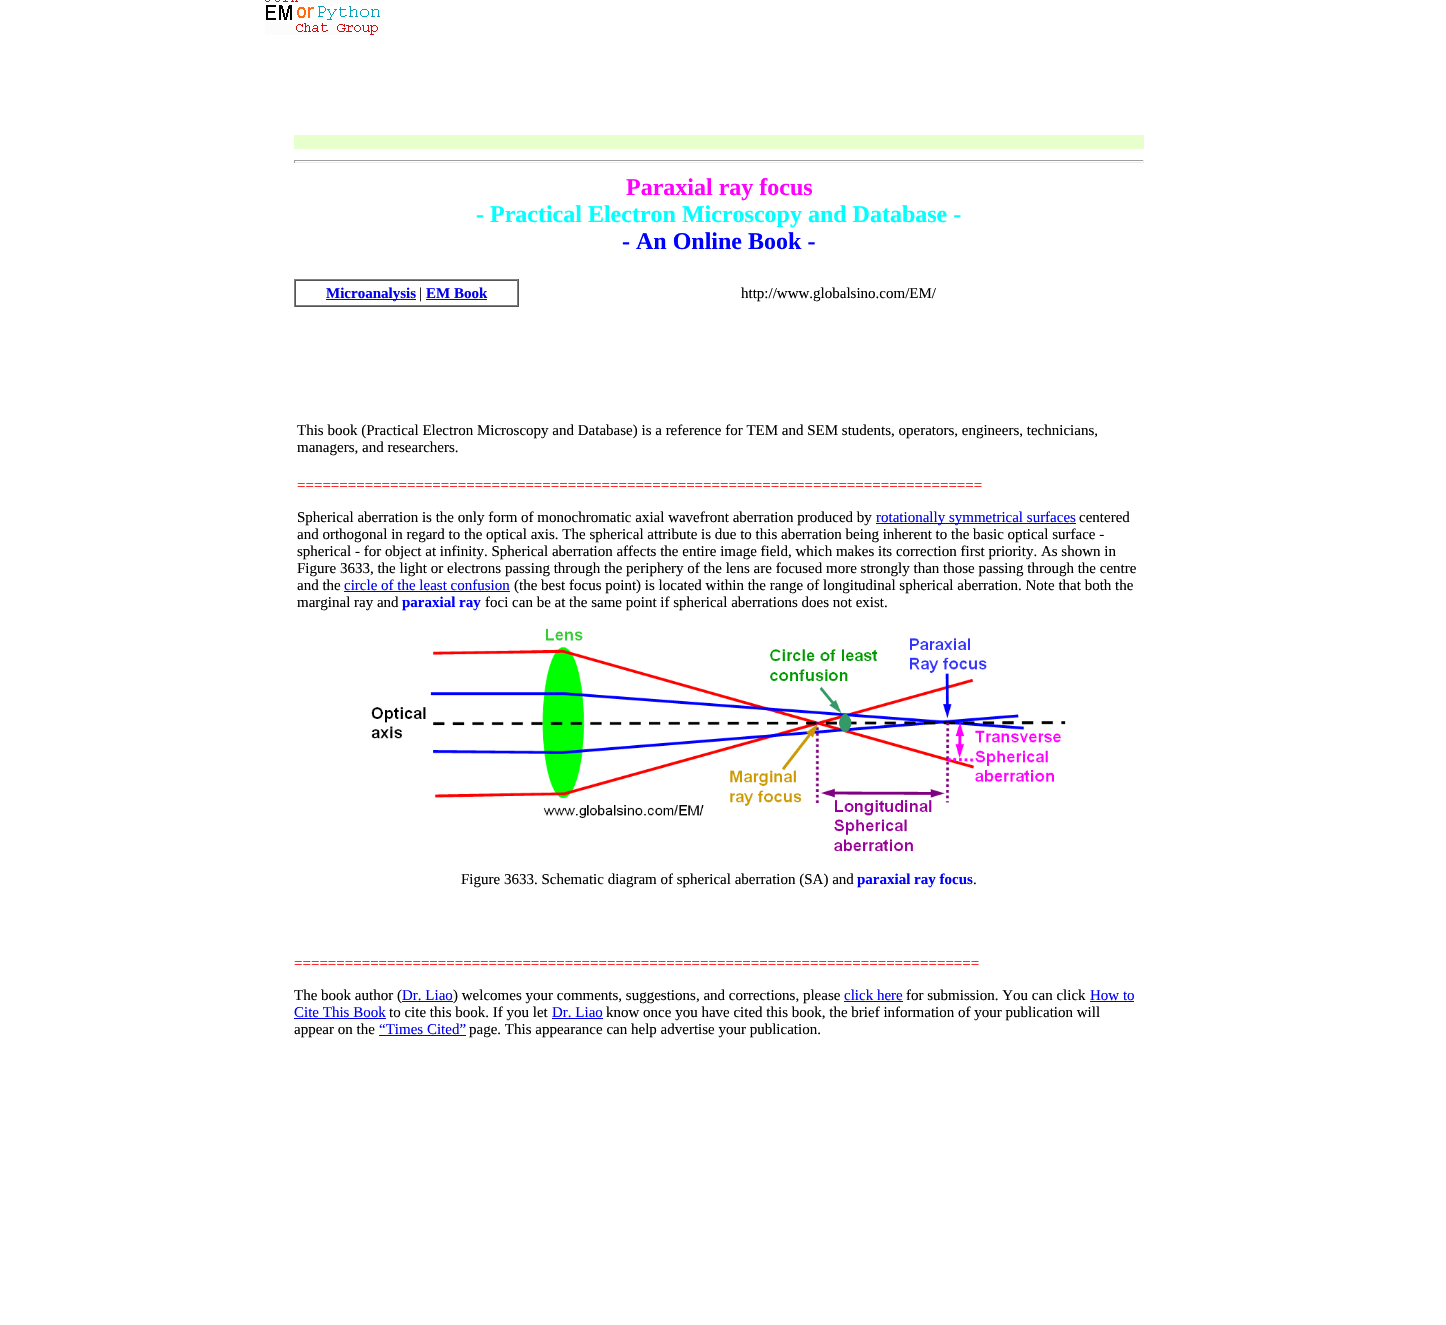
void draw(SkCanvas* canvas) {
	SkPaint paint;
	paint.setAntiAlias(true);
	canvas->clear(0xffffffff);
	canvas->drawImageRect(SkImages::DeferredFromEncodedData(SkData::MakeFromFileName("img1.png")), SkRect::MakeXYWH(265, 0, 115, 35), SkSamplingOptions());
	paint.setColor(0xffe6ffcc);
	canvas->drawRect(SkRect::MakeXYWH(294, 135, 850, 14), paint);
	paint.setColor(0xff9f9f9f);
	canvas->drawRect(SkRect::MakeXYWH(294, 160, 850, 1), paint);
	paint.setColor(0xffeeeeee);
	canvas->drawRect(SkRect::MakeXYWH(1143, 160, 1, 3), paint);
	canvas->drawRect(SkRect::MakeXYWH(294, 162, 850, 1), paint);
	paint.setColor(0xff9f9f9f);
	canvas->drawRect(SkRect::MakeXYWH(294, 160, 1, 3), paint);
	SkFont f1(fontMgr->matchFamilyStyle("Liberation Serif", SkFontStyle::Bold()), 24);
	f1.setSubpixel(true);
	paint.setColor(0xffff00ff);
	canvas->drawString("Paraxial ray focus", 626, 195, f1, paint);
	paint.setColor(0xff00ffff);
	canvas->drawString("- Practical Electron Microscopy and Database -", 476, 222, f1, paint);
	paint.setColor(0xff0000ff);
	canvas->drawString("- An Online Book -", 622, 249, f1, paint);
	paint.setColor(0xff808080);
	canvas->drawRect(SkRect::MakeXYWH(294, 279, 225, 1), paint);
	paint.setColor(0xff555555);
	canvas->drawRect(SkRect::MakeXYWH(518, 279, 1, 28), paint);
	canvas->drawRect(SkRect::MakeXYWH(294, 306, 225, 1), paint);
	paint.setColor(0xff808080);
	canvas->drawRect(SkRect::MakeXYWH(294, 279, 1, 28), paint);
	paint.setColor(0xff555555);
	canvas->drawRect(SkRect::MakeXYWH(295, 280, 223, 1), paint);
	paint.setColor(0xff808080);
	canvas->drawRect(SkRect::MakeXYWH(517, 280, 1, 26), paint);
	canvas->drawRect(SkRect::MakeXYWH(295, 305, 223, 1), paint);
	paint.setColor(0xff555555);
	canvas->drawRect(SkRect::MakeXYWH(295, 280, 1, 26), paint);
	paint.setColor(0xff0000ee);
	canvas->drawRect(SkRect::MakeXYWH(326, 299, 90, 1), paint);
	SkFont f2(fontMgr->matchFamilyStyle("Liberation Serif", SkFontStyle::Bold()), 15);
	f2.setSubpixel(true);
	canvas->drawString("Microanalysis", 326, 298, f2, paint);
	SkFont f3(fontMgr->matchFamilyStyle("Liberation Serif", SkFontStyle::Normal()), 15);
	f3.setSubpixel(true);
	paint.setColor(0xff000000);
	canvas->drawString("|", 419, 298, f3, paint);
	paint.setColor(0xff0000ee);
	canvas->drawString("EM Book", 426, 298, f2, paint);
	canvas->drawRect(SkRect::MakeXYWH(426, 299, 61, 1), paint);
	paint.setColor(0xff000000);
	canvas->drawString("http://www.globalsino.com/EM/", 741, 298, f3, paint);
	canvas->drawString("This book (Practical Electron Microscopy and Database) is a reference for TEM and SEM students, operators, engineers, technicians,", 297, 435, f3, paint);
	canvas->drawString("managers, and researchers.", 297, 452, f3, paint);
	paint.setColor(0xffff0000);
	canvas->drawString("=================================================================================", 297, 490, f3, paint);
	paint.setColor(0xff000000);
	canvas->drawString("Spherical aberration is the only form of monochromatic axial wavefront aberration produced by", 297, 522, f3, paint);
	paint.setColor(0xff0000ee);
	canvas->drawRect(SkRect::MakeXYWH(876, 523, 200, 1), paint);
	canvas->drawString("rotationally symmetrical surfaces", 876, 522, f3, paint);
	paint.setColor(0xff000000);
	canvas->drawString("centered", 1079, 522, f3, paint);
	canvas->drawString("and orthogonal in regard to the optical axis. The spherical attribute is due to this aberration being inherent to the basic optical surface -", 297, 539, f3, paint);
	canvas->drawString("spherical - for object at infinity. Spherical aberration affects the entire image field, which makes its correction first priority. As shown in", 297, 556, f3, paint);
	canvas->drawString("Figure 3633, the light or electrons passing through the periphery of the lens are focused more strongly than those passing through the centre", 297, 573, f3, paint);
	canvas->drawString("and the", 297, 590, f3, paint);
	paint.setColor(0xff0000ee);
	canvas->drawString("circle of the least confusion", 344, 590, f3, paint);
	canvas->drawRect(SkRect::MakeXYWH(344, 591, 166, 1), paint);
	paint.setColor(0xff000000);
	canvas->drawString("(the best focus point) is located within the range of longitudinal spherical aberration. Note that both the", 514, 590, f3, paint);
	canvas->drawString("marginal ray and", 297, 607, f3, paint);
	paint.setColor(0xff0000ff);
	canvas->drawString("paraxial ray", 402, 607, f2, paint);
	paint.setColor(0xff000000);
	canvas->drawString("foci can be at the same point if spherical aberrations does not exist.", 485, 607, f3, paint);
	canvas->drawImageRect(SkImages::DeferredFromEncodedData(SkData::MakeFromFileName("img2.png")), SkRect::MakeXYWH(371, 628, 695, 224), SkSamplingOptions());
	canvas->drawString("Figure 3633. Schematic diagram of spherical aberration (SA) and", 461, 884, f3, paint);
	paint.setColor(0xff0000ff);
	canvas->drawString("paraxial ray focus", 857, 884, f2, paint);
	paint.setColor(0xff000000);
	canvas->drawString(".", 973, 884, f3, paint);
	paint.setColor(0xffff0000);
	canvas->drawString("=================================================================================", 294, 968, f3, paint);
	paint.setColor(0xff000000);
	canvas->drawString("The book author (", 294, 1000, f3, paint);
	paint.setColor(0xff0000ee);
	canvas->drawString("Dr. Liao", 402, 1000, f3, paint);
	canvas->drawRect(SkRect::MakeXYWH(402, 1001, 51, 1), paint);
	paint.setColor(0xff000000);
	canvas->drawString(") welcomes your comments, suggestions, and corrections, please", 453, 1000, f3, paint);
	paint.setColor(0xff0000ee);
	canvas->drawString("click here", 844, 1000, f3, paint);
	canvas->drawRect(SkRect::MakeXYWH(844, 1001, 59, 1), paint);
	paint.setColor(0xff000000);
	canvas->drawString("for submission. You can click", 906, 1000, f3, paint);
	paint.setColor(0xff0000ee);
	canvas->drawString("How to", 1090, 1000, f3, paint);
	canvas->drawRect(SkRect::MakeXYWH(1090, 1001, 44, 1), paint);
	canvas->drawString("Cite This Book", 294, 1017, f3, paint);
	canvas->drawRect(SkRect::MakeXYWH(294, 1018, 92, 1), paint);
	paint.setColor(0xff000000);
	canvas->drawString("to cite this book. If you let", 389, 1017, f3, paint);
	paint.setColor(0xff0000ee);
	canvas->drawString("Dr. Liao", 552, 1017, f3, paint);
	canvas->drawRect(SkRect::MakeXYWH(552, 1018, 51, 1), paint);
	paint.setColor(0xff000000);
	canvas->drawString("know once you have cited this book, the brief information of your publication will", 606, 1017, f3, paint);
	canvas->drawString("appear on the", 294, 1034, f3, paint);
	paint.setColor(0xff0000ee);
	canvas->drawString("“Times Cited”", 379, 1034, f3, paint);
	canvas->drawRect(SkRect::MakeXYWH(379, 1035, 87, 1), paint);
	paint.setColor(0xff000000);
	canvas->drawString("page. This appearance can help advertise your publication.", 469, 1034, f3, paint);
}
